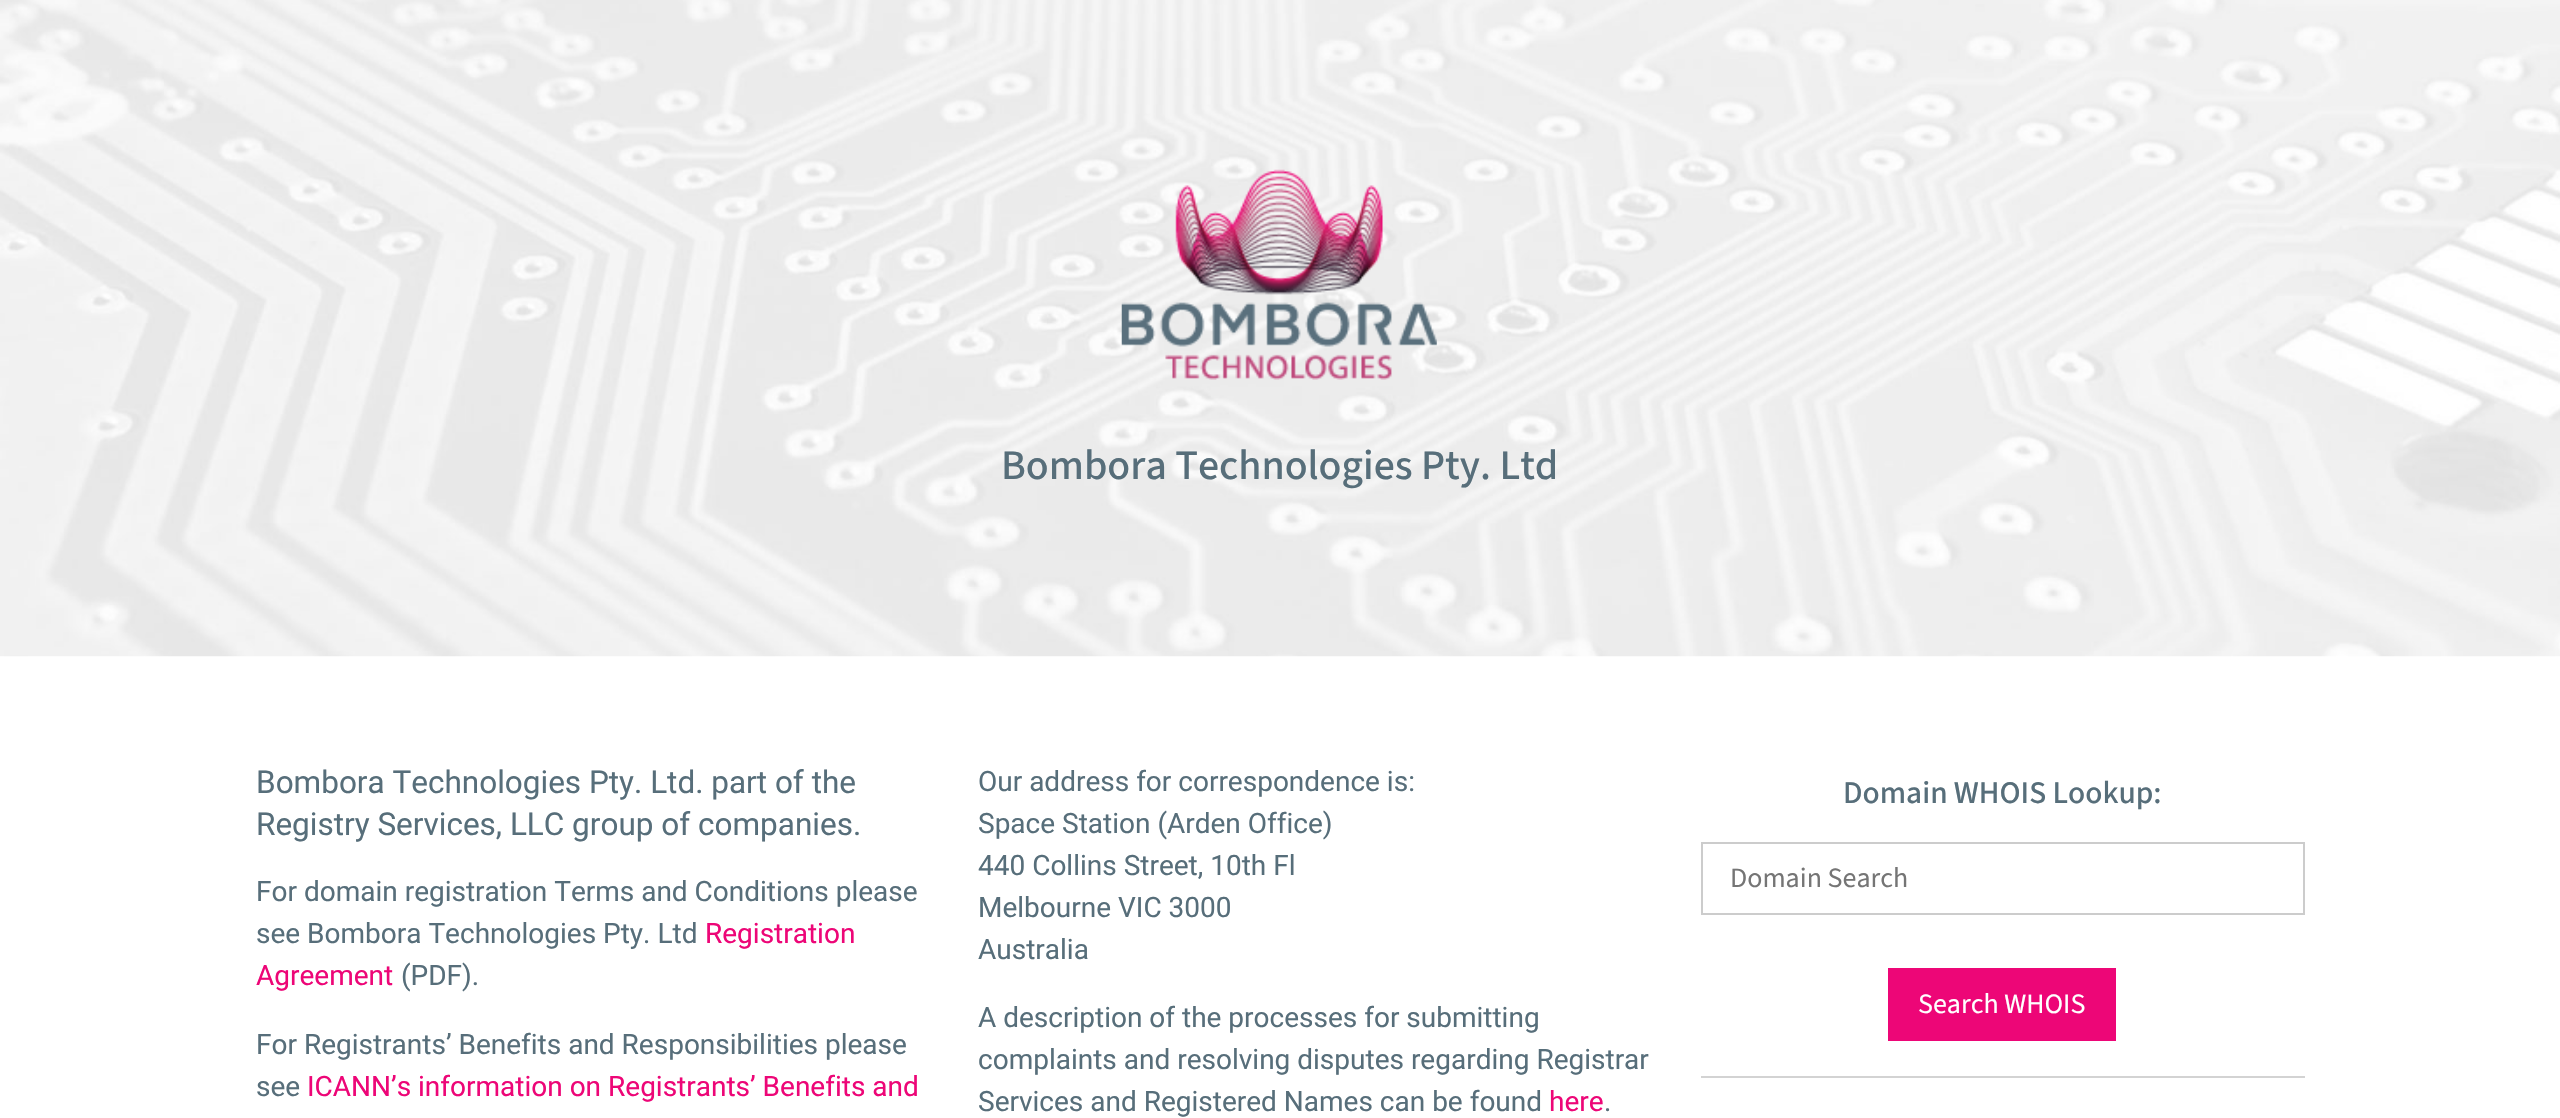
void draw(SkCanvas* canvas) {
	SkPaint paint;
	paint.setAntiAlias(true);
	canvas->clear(0xffffffff);
	canvas->drawImageRect(SkImages::DeferredFromEncodedData(SkData::MakeFromFileName("img1.png")), SkRect::MakeXYWH(0, 0, 2560, 657), SkSamplingOptions());
	canvas->drawImageRect(SkImages::DeferredFromEncodedData(SkData::MakeFromFileName("img2.png")), SkRect::MakeXYWH(1121, 169, 316, 211), SkSamplingOptions());
	SkFont f1(fontMgr->matchFamilyStyle("Source Sans 3", SkFontStyle(500, SkFontStyle::kNormal_Width, SkFontStyle::kUpright_Slant)), 42);
	f1.setSubpixel(true);
	paint.setColor(0xff576e7a);
	canvas->drawString("Bombora Technologies Pty. Ltd", 1001, 479, f1, paint);
	SkFont f2(fontMgr->matchFamilyStyle("Roboto", SkFontStyle::Normal()), 31.5);
	f2.setSubpixel(true);
	canvas->drawString("Bombora Technologies Pty. Ltd. part of the", 256, 793, f2, paint);
	canvas->drawString("Registry Services, LLC group of companies.", 256, 835, f2, paint);
	SkFont f3(fontMgr->matchFamilyStyle("Roboto", SkFontStyle::Normal()), 28);
	f3.setSubpixel(true);
	canvas->drawString("For domain registration Terms and Conditions please", 256, 901, f3, paint);
	canvas->drawString("see Bombora Technologies Pty. Ltd", 256, 943, f3, paint);
	paint.setColor(0xffed0677);
	canvas->drawString("Registration", 705, 943, f3, paint);
	canvas->drawString("Agreement", 256, 985, f3, paint);
	paint.setColor(0xff576e7a);
	canvas->drawString("(PDF).", 401, 985, f3, paint);
	canvas->drawString("For Registrants’ Benefits and Responsibilities please", 256, 1054, f3, paint);
	canvas->drawString("see", 256, 1096, f3, paint);
	paint.setColor(0xffed0677);
	canvas->drawString("ICANN’s information on Registrants’ Benefits and", 307, 1096, f3, paint);
	paint.setColor(0xff576e7a);
	canvas->drawString("Our address for correspondence is:", 978, 791, f3, paint);
	canvas->drawString("Space Station (Arden Office)", 978, 833, f3, paint);
	canvas->drawString("440 Collins Street, 10th Fl", 978, 875, f3, paint);
	canvas->drawString("Melbourne VIC 3000", 978, 917, f3, paint);
	canvas->drawString("Australia", 978, 959, f3, paint);
	canvas->drawString("A description of the processes for submitting", 978, 1027, f3, paint);
	canvas->drawString("complaints and resolving disputes regarding Registrar", 978, 1069, f3, paint);
	canvas->drawString("Services and Registered Names can be found", 978, 1111, f3, paint);
	paint.setColor(0xffed0677);
	canvas->drawString("here", 1549, 1111, f3, paint);
	paint.setColor(0xff576e7a);
	canvas->drawString(".", 1604, 1111, f3, paint);
	paint.setColor(0xffd3d3d3);
	canvas->drawRect(SkRect::MakeXYWH(1701, 1076, 604, 2), paint);
	SkFont f4(fontMgr->matchFamilyStyle("Source Sans 3", SkFontStyle(500, SkFontStyle::kNormal_Width, SkFontStyle::kUpright_Slant)), 31.5);
	f4.setSubpixel(true);
	paint.setColor(0xff576e7a);
	canvas->drawString("Domain WHOIS Lookup:", 1843, 803, f4, paint);
	paint.setStroke(true);
	paint.setStrokeWidth(2);
	paint.setColor(0xffcccccc);
	canvas->drawRect(SkRect::MakeXYWH(1702, 843, 602, 71), paint);
	SkFont f5(fontMgr->matchFamilyStyle("Source Sans 3", SkFontStyle::Normal()), 28);
	f5.setSubpixel(true);
	paint.setStroke(false);
	paint.setColor(0xff757575);
	canvas->drawString("Domain Search", 1730, 887, f5, paint);
	paint.setColor(0xffed0677);
	canvas->drawRect(SkRect::MakeXYWH(1888, 968, 228, 73), paint);
	paint.setColor(0xffffffff);
	canvas->drawString("Search WHOIS", 1918, 1013, f5, paint);
}
